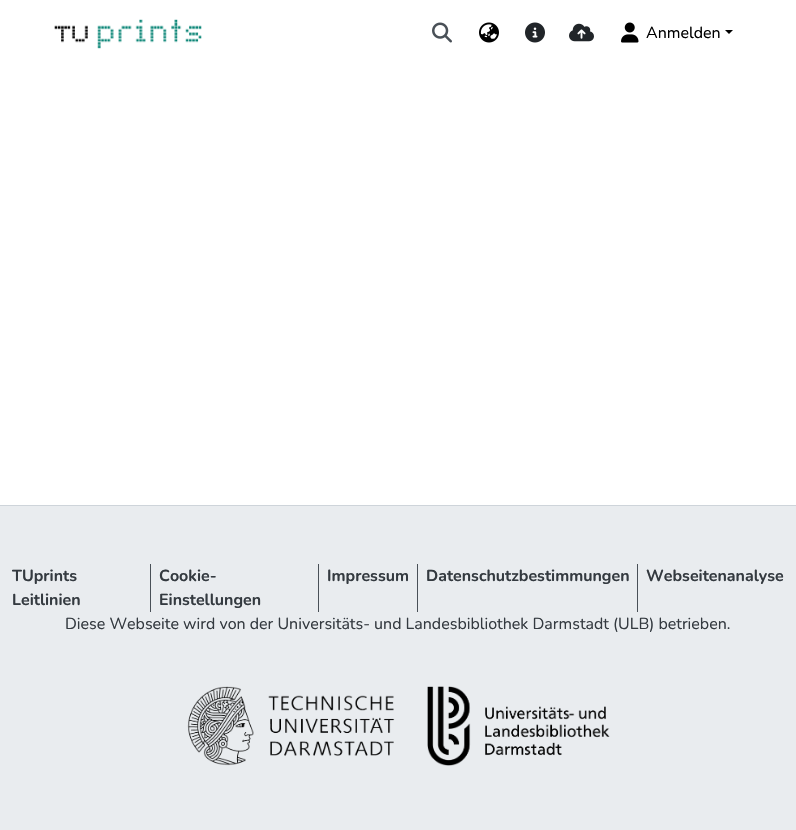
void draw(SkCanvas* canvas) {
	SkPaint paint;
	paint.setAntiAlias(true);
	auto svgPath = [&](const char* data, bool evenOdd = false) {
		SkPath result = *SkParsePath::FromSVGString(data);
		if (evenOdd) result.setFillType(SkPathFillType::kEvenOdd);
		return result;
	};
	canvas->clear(0xffffffff);
	canvas->drawImageRect(SkImages::DeferredFromEncodedData(SkData::MakeFromFileName("img1.png")), SkRect::MakeXYWH(54, 19, 148, 30), SkSamplingOptions());
	canvas->drawImageRect(SkImages::DeferredFromEncodedData(SkData::MakeFromFileName("img2.png")), SkRect::MakeXYWH(432, 22, 20, 21), SkSamplingOptions());
	canvas->drawImageRect(SkImages::DeferredFromEncodedData(SkData::MakeFromFileName("img3.png")), SkRect::MakeXYWH(479, 22, 20, 21), SkSamplingOptions());
	canvas->drawImageRect(SkImages::DeferredFromEncodedData(SkData::MakeFromFileName("img4.png")), SkRect::MakeXYWH(525, 22, 20, 21), SkSamplingOptions());
	canvas->drawImageRect(SkImages::DeferredFromEncodedData(SkData::MakeFromFileName("img5.png")), SkRect::MakeXYWH(569, 23, 25, 19), SkSamplingOptions());
	canvas->drawImageRect(SkImages::DeferredFromEncodedData(SkData::MakeFromFileName("img6.png")), SkRect::MakeXYWH(621, 22, 18, 21), SkSamplingOptions());
	SkFont f1(fontMgr->matchFamilyStyle("Nunito", SkFontStyle::Normal()), 16);
	f1.setSubpixel(true);
	paint.setColor(0xff000000);
	canvas->drawString("Anmelden", 646, 38, f1, paint);
	canvas->drawPath(svgPath("M725 30H733L729 34Z"), paint);
	paint.setColor(0xffe9ecef);
	canvas->drawRect(SkRect::MakeXYWH(0, 506, 796, 324), paint);
	paint.setColor(0xffced4da);
	canvas->drawRect(SkRect::MakeXYWH(0, 505, 796, 1), paint);
	SkFont f2(fontMgr->matchFamilyStyle("Nunito", SkFontStyle::Bold()), 16);
	f2.setSubpixel(true);
	paint.setColor(0xff343a40);
	canvas->drawString("TUprints", 12, 581, f2, paint);
	canvas->drawString("Leitlinien", 12, 605, f2, paint);
	paint.setColor(0xff495057);
	canvas->drawRect(SkRect::MakeXYWH(150, 564, 1, 48), paint);
	paint.setColor(0xff343a40);
	canvas->drawString("Cookie-", 159, 581, f2, paint);
	canvas->drawString("Einstellungen", 159, 605, f2, paint);
	paint.setColor(0xff495057);
	canvas->drawRect(SkRect::MakeXYWH(318, 564, 1, 48), paint);
	paint.setColor(0xff343a40);
	canvas->drawString("Impressum", 327, 581, f2, paint);
	paint.setColor(0xff495057);
	canvas->drawRect(SkRect::MakeXYWH(417, 564, 1, 48), paint);
	paint.setColor(0xff343a40);
	canvas->drawString("Datenschutzbestimmungen", 426, 581, f2, paint);
	paint.setColor(0xff495057);
	canvas->drawRect(SkRect::MakeXYWH(637, 564, 1, 48), paint);
	paint.setColor(0xff343a40);
	canvas->drawString("Webseitenanalyse", 646, 581, f2, paint);
	canvas->drawString("Diese Webseite wird von der Universitäts- und Landesbibliothek Darmstadt (ULB) betrieben.", 65, 629, f1, paint);
	canvas->drawImageRect(SkImages::DeferredFromEncodedData(SkData::MakeFromFileName("img7.png")), SkRect::MakeXYWH(187, 686, 208, 80), SkSamplingOptions());
	canvas->drawImageRect(SkImages::DeferredFromEncodedData(SkData::MakeFromFileName("img8.png")), SkRect::MakeXYWH(427, 686, 183, 80), SkSamplingOptions());
}
